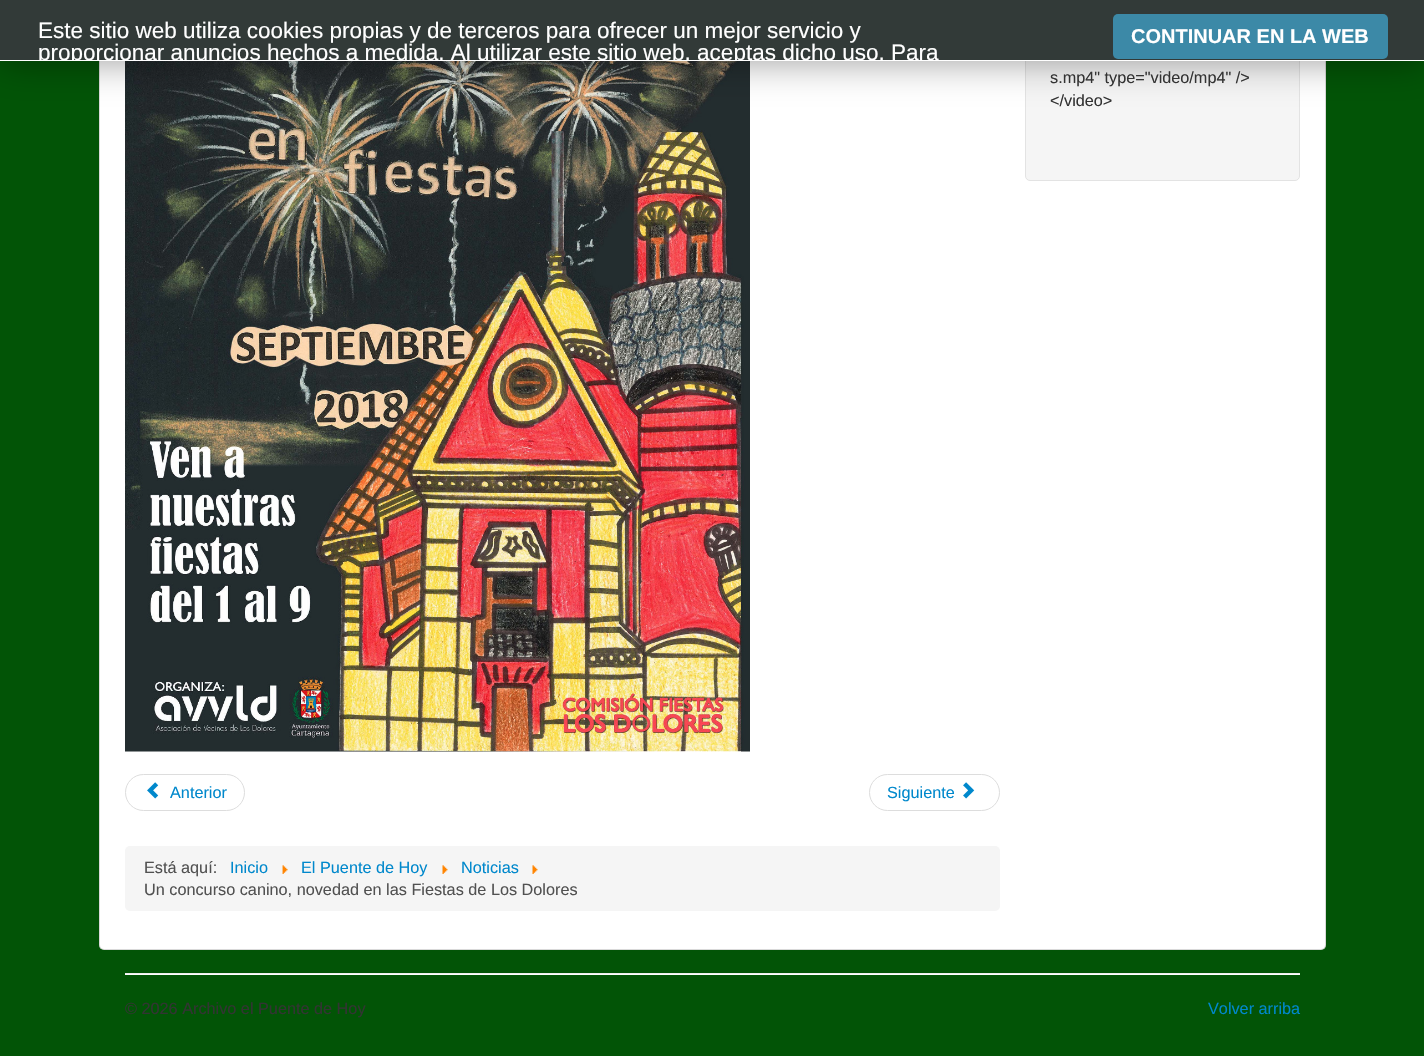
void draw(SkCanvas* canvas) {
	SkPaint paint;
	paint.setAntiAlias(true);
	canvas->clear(0xff025406);
	paint.setColor(0xffffffff);
	canvas->drawRoundRect(SkRect::MakeXYWH(99, -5, 1227, 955), 5, 5, paint);
	paint.setStroke(true);
	paint.setStrokeWidth(1);
	paint.setColor(0x26000000);
	canvas->drawRoundRect(SkRect::MakeXYWH(99.5, -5.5, 1226, 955), 4.5, 4.5, paint);
	paint.setStroke(false);
	paint.setColor(0xfff5f5f5);
	canvas->drawRoundRect(SkRect::MakeXYWH(1025.5, -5.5, 274, 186), 4.5, 4.5, paint);
	paint.setStroke(true);
	paint.setColor(0xffe3e3e3);
	canvas->drawRoundRect(SkRect::MakeXYWH(1025.5, -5.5, 274, 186), 4.5, 4.5, paint);
	canvas->drawImageRect(SkImages::DeferredFromEncodedData(SkData::MakeFromFileName("img1.png")), SkRect::MakeXYWH(125, 61, 625, 691), SkSamplingOptions());
	paint.setStroke(false);
	paint.setColor(0x66000000);
	paint.setMaskFilter(SkMaskFilter::MakeBlur(kNormal_SkBlurStyle, 19));
	canvas->drawRect(SkRect::MakeXYWH(0, 0, 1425, 61), paint);
	paint.setMaskFilter(nullptr);
	paint.setColor(0xff323a38);
	canvas->drawRect(SkRect::MakeXYWH(0, 0, 1424, 60), paint);
	paint.setColor(0xffffffff);
	canvas->drawRect(SkRect::MakeXYWH(0, 60, 1424, 1), paint);
	SkFont f1(fontMgr->matchFamilyStyle("Liberation Sans", SkFontStyle::Normal()), 22.5);
	f1.setSubpixel(true);
	canvas->drawString("Este sitio web utiliza cookies propias y de terceros para ofrecer un mejor servicio y", 38, 38, f1, paint);
	canvas->save();
	canvas->clipRect(SkRect::MakeXYWH(0, 0, 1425, 60));
	canvas->drawString("proporcionar anuncios hechos a medida. Al utilizar este sitio web, aceptas dicho uso. Para", 38, 60, f1, paint);
	canvas->restore();
	paint.setColor(0xff3c89a7);
	canvas->drawRoundRect(SkRect::MakeXYWH(1113, 14, 275, 45), 5, 5, paint);
	SkFont f2(fontMgr->matchFamilyStyle("Liberation Sans", SkFontStyle::Bold()), 20);
	f2.setSubpixel(true);
	paint.setColor(0xffffffff);
	canvas->drawString("CONTINUAR EN LA WEB", 1131, 43, f2, paint);
	SkFont f3(fontMgr->matchFamilyStyle("Liberation Sans", SkFontStyle::Normal()), 16.25);
	f3.setSubpixel(true);
	paint.setColor(0xff333333);
	canvas->drawString("s.mp4\" type=\"video/mp4\" />", 1050, 83, f3, paint);
	canvas->drawString("</video>", 1050, 106, f3, paint);
	paint.setStroke(true);
	paint.setColor(0xffdddddd);
	canvas->drawRoundRect(SkRect::MakeXYWH(125.5, 774.5, 119, 36), 18, 18, paint);
	canvas->drawImageRect(SkImages::DeferredFromEncodedData(SkData::MakeFromFileName("img2.png")), SkRect::MakeXYWH(147, 782, 12, 17), SkSamplingOptions());
	paint.setStroke(false);
	paint.setColor(0xff0088cc);
	canvas->drawString("Anterior", 170, 798, f3, paint);
	paint.setStroke(true);
	paint.setColor(0xffdddddd);
	canvas->drawRoundRect(SkRect::MakeXYWH(869.5, 774.5, 130, 36), 18, 18, paint);
	paint.setStroke(false);
	paint.setColor(0xff0088cc);
	canvas->drawString("Siguiente", 887, 798, f3, paint);
	canvas->drawImageRect(SkImages::DeferredFromEncodedData(SkData::MakeFromFileName("img3.png")), SkRect::MakeXYWH(963, 782, 12, 17), SkSamplingOptions());
	paint.setColor(0xfff5f5f5);
	canvas->drawRoundRect(SkRect::MakeXYWH(125, 846, 875, 65), 5, 5, paint);
	paint.setColor(0xff515151);
	canvas->drawString("Está aquí:", 144, 873, f3, paint);
	paint.setColor(0xff0088cc);
	canvas->drawString("Inicio", 230, 873, f3, paint);
	canvas->drawImageRect(SkImages::DeferredFromEncodedData(SkData::MakeFromFileName("img4.png")), SkRect::MakeXYWH(282, 865, 6, 9), SkSamplingOptions());
	canvas->drawString("El Puente de Hoy", 301, 873, f3, paint);
	canvas->drawImageRect(SkImages::DeferredFromEncodedData(SkData::MakeFromFileName("img5.png")), SkRect::MakeXYWH(442, 865, 6, 9), SkSamplingOptions());
	canvas->drawString("Noticias", 461, 873, f3, paint);
	canvas->drawImageRect(SkImages::DeferredFromEncodedData(SkData::MakeFromFileName("img5.png")), SkRect::MakeXYWH(532, 865, 6, 9), SkSamplingOptions());
	paint.setColor(0xff515151);
	canvas->drawString("Un concurso canino, novedad en las Fiestas de Los Dolores", 144, 895, f3, paint);
	paint.setColor(0xffeeeeee);
	canvas->drawRect(SkRect::MakeXYWH(125, 973, 1175, 1), paint);
	paint.setColor(0xffffffff);
	canvas->drawRect(SkRect::MakeXYWH(125, 974, 1175, 1), paint);
	paint.setColor(0xff333333);
	canvas->drawString("© 2026 Archivo el Puente de Hoy", 125, 1014, f3, paint);
	paint.setColor(0xff0088cc);
	canvas->drawString("Volver arriba", 1208, 1014, f3, paint);
}
